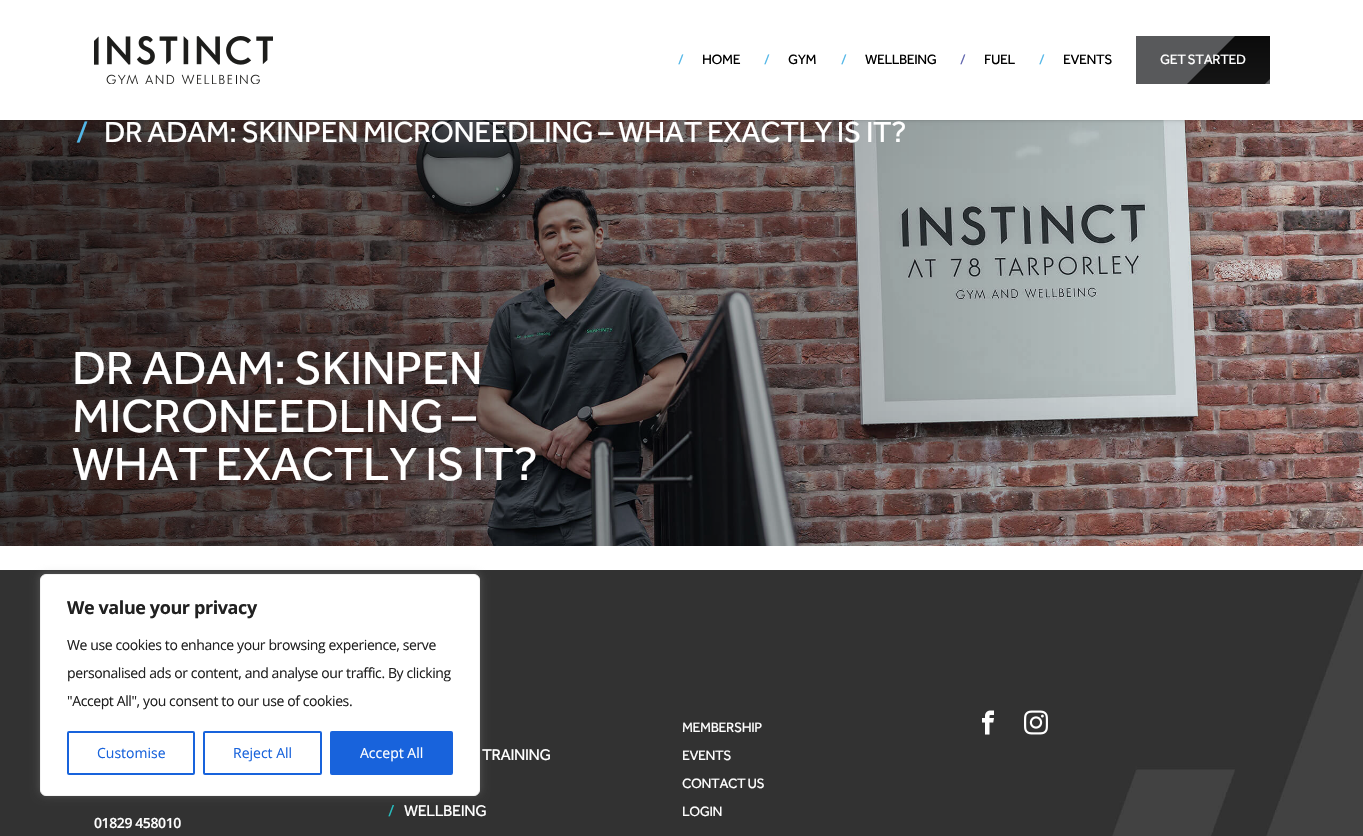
void draw(SkCanvas* canvas) {
	SkPaint paint;
	paint.setAntiAlias(true);
	auto spacedText = [&](const char* s, float x, float y, const SkFont& font, const SkPaint& ink, float letter, float word) {
		std::vector<SkGlyphID> glyphs(font.countText(s, strlen(s), SkTextEncoding::kUTF8));
		std::vector<float> xs(glyphs.size());
		font.textToGlyphs(s, strlen(s), SkTextEncoding::kUTF8, glyphs);
		font.getXPos(glyphs, xs, x);
		float extra = 0;
		for (size_t i = 0; i < glyphs.size(); i++) {
			xs[i] += extra;
			extra += letter + word * (glyphs[i] == font.unicharToGlyph(' '));
		}
		canvas->drawTextBlob(SkTextBlob::MakeFromPosHGlyphs(glyphs, xs, y, font), 0, 0, ink);
	};
	auto svgPath = [&](const char* data, bool evenOdd = false) {
		SkPath result = *SkParsePath::FromSVGString(data);
		if (evenOdd) result.setFillType(SkPathFillType::kEvenOdd);
		return result;
	};
	canvas->clear(0xffffffff);
	canvas->drawImageRect(SkImages::DeferredFromEncodedData(SkData::MakeFromFileName("img2.png")), SkRect::MakeXYWH(0, 120, 1363, 426), SkSamplingOptions());
	paint.setColor(0x1a000000);
	paint.setMaskFilter(SkMaskFilter::MakeBlur(kNormal_SkBlurStyle, 1));
	canvas->drawRect(SkRect::MakeXYWH(1, 2, 1361, 118), paint);
	paint.setMaskFilter(nullptr);
	paint.setMaskFilter(SkMaskFilter::MakeBlur(kNormal_SkBlurStyle, 1.5));
	canvas->drawRect(SkRect::MakeXYWH(0, 1, 1363, 120), paint);
	paint.setMaskFilter(nullptr);
	paint.setColor(0xffffffff);
	canvas->drawRect(SkRect::MakeXYWH(0, 0, 1363, 120), paint);
	canvas->drawImageRect(SkImages::DeferredFromEncodedData(SkData::MakeFromFileName("img1.png")), SkRect::MakeXYWH(94, 36, 179, 48), SkSamplingOptions());
	SkFont f1(fontMgr->matchFamilyStyle("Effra", SkFontStyle::Normal()), 14);
	f1.setSubpixel(true);
	paint.setColor(0xff53b7e8);
	spacedText("/", 678, 64, f1, paint, -0.4, 0);
	paint.setColor(0xff000000);
	spacedText("HOME", 702, 64, f1, paint, -0.4, 0);
	paint.setColor(0xff53b7e8);
	spacedText("/", 764, 64, f1, paint, -0.4, 0);
	paint.setColor(0xff000000);
	spacedText("GYM", 788, 64, f1, paint, -0.4, 0);
	paint.setColor(0xff53b7e8);
	spacedText("/", 841, 64, f1, paint, -0.4, 0);
	paint.setColor(0xff000000);
	spacedText("WELLBEING", 865, 64, f1, paint, -0.4, 0);
	paint.setColor(0xff6166af);
	spacedText("/", 960, 64, f1, paint, -0.4, 0);
	paint.setColor(0xff000000);
	spacedText("FUEL", 984, 64, f1, paint, -0.4, 0);
	paint.setColor(0xff53b7e8);
	spacedText("/", 1039, 64, f1, paint, -0.4, 0);
	paint.setColor(0xff000000);
	spacedText("EVENTS", 1063, 64, f1, paint, -0.4, 0);
	paint.setColor(0xff58595b);
	canvas->drawRect(SkRect::MakeXYWH(1136, 36, 134, 48), paint);
	canvas->save();
	canvas->clipRect(SkRect::MakeXYWH(1136, 36, 134, 48));
	{
		const SkColor colors[] = {0xff050505, 0xff313132};
		const float stops[] = {0, 1};
		const SkPoint ends[] = {{1194, 5.7}, {1194, 226}};
		paint.setShader(SkGradientShader::MakeLinear(ends, colors, stops, 2, SkTileMode::kClamp));
		paint.setAlpha(255);
	}
	canvas->drawPath(svgPath("M1265 6L1304 45L1123 226L1084 187Z"), paint);
	canvas->restore();
	paint.setShader(nullptr);
	paint.setColor(0xffffffff);
	spacedText("GET STARTED", 1160, 64, f1, paint, -0.4, 0);
	SkFont f2(fontMgr->matchFamilyStyle("Effra", SkFontStyle::Normal()), 30);
	f2.setSubpixel(true);
	paint.setColor(0xff53b7e8);
	spacedText("/", 76, 142, f2, paint, -0.4, 0);
	paint.setColor(0xffffffff);
	spacedText("DR ADAM: SKINPEN MICRONEEDLING – WHAT EXACTLY IS IT?", 104, 142, f2, paint, -0.4, 0);
	SkFont f3(fontMgr->matchFamilyStyle("Effra", SkFontStyle::Normal()), 48);
	f3.setSubpixel(true);
	spacedText("DR ADAM: SKINPEN", 72, 384, f3, paint, -0.4, 0);
	spacedText("MICRONEEDLING –", 72, 432, f3, paint, -0.4, 0);
	spacedText("WHAT EXACTLY IS IT?", 72, 480, f3, paint, -0.4, 0);
	canvas->drawImageRect(SkImages::DeferredFromEncodedData(SkData::MakeFromFileName("img3.png")), SkRect::MakeXYWH(0, 570, 1363, 266), SkSamplingOptions());
	paint.setColor(0x4dacabab);
	paint.setMaskFilter(SkMaskFilter::MakeBlur(kNormal_SkBlurStyle, 5));
	canvas->drawRoundRect(SkRect::MakeXYWH(40, 573, 440, 222), 6, 6, paint);
	paint.setMaskFilter(nullptr);
	paint.setColor(0xffffffff);
	canvas->drawRoundRect(SkRect::MakeXYWH(40.5, 574.5, 439, 221), 5.5, 5.5, paint);
	paint.setStroke(true);
	paint.setStrokeWidth(1);
	paint.setColor(0xfff4f4f4);
	canvas->drawRoundRect(SkRect::MakeXYWH(40.5, 574.5, 439, 221), 5.5, 5.5, paint);
	SkFont f4(fontMgr->matchFamilyStyle("Open Sans", SkFontStyle::Bold()), 18);
	f4.setSubpixel(true);
	paint.setStroke(false);
	paint.setColor(0xff212121);
	spacedText("We value your privacy", 67, 614, f4, paint, -0.4, 0);
	SkFont f5(fontMgr->matchFamilyStyle("Open Sans", SkFontStyle::Normal()), 14);
	f5.setSubpixel(true);
	spacedText("We use cookies to enhance your browsing experience, serve", 67, 650, f5, paint, -0.4, 0);
	spacedText("personalised ads or content, and analyse our traffic. By clicking", 67, 678, f5, paint, -0.4, 0);
	spacedText("\"Accept All\", you consent to our use of cookies.", 67, 706, f5, paint, -0.4, 0);
	paint.setStroke(true);
	paint.setStrokeWidth(2);
	paint.setColor(0xff1863dc);
	canvas->drawRoundRect(SkRect::MakeXYWH(68, 732, 126, 42), 1, 1, paint);
	paint.setStroke(false);
	canvas->drawString("Customise", 97, 758, f5, paint);
	paint.setStroke(true);
	canvas->drawRoundRect(SkRect::MakeXYWH(204, 732, 117, 42), 1, 1, paint);
	paint.setStroke(false);
	canvas->drawString("Reject All", 233, 758, f5, paint);
	canvas->drawRoundRect(SkRect::MakeXYWH(331, 732, 121, 42), 1, 1, paint);
	paint.setStroke(true);
	canvas->drawRoundRect(SkRect::MakeXYWH(331, 732, 121, 42), 1, 1, paint);
	paint.setStroke(false);
	paint.setColor(0xffffffff);
	canvas->drawString("Accept All", 360, 758, f5, paint);
	SkFont f6(fontMgr->matchFamilyStyle("Effra", SkFontStyle::Normal()), 16);
	f6.setSubpixel(true);
	spacedText("TRAINING", 482, 760, f6, paint, -0.4, 0);
	paint.setColor(0xff27bdbe);
	spacedText("/", 388, 816, f6, paint, -0.4, 0);
	paint.setColor(0xffffffff);
	spacedText("WELLBEING", 404, 816, f6, paint, -0.4, 0);
	spacedText("MEMBERSHIP", 682, 732, f1, paint, -0.4, 0);
	spacedText("EVENTS", 682, 760, f1, paint, -0.4, 0);
	spacedText("CONTACT US", 682, 788, f1, paint, -0.4, 0);
	spacedText("LOGIN", 682, 816, f1, paint, -0.4, 0);
	canvas->drawImageRect(SkImages::DeferredFromEncodedData(SkData::MakeFromFileName("img4.png")), SkRect::MakeXYWH(982, 710, 12, 25), SkSamplingOptions());
	canvas->drawImageRect(SkImages::DeferredFromEncodedData(SkData::MakeFromFileName("img5.png")), SkRect::MakeXYWH(1024, 710, 24, 25), SkSamplingOptions());
	SkFont f7(fontMgr->matchFamilyStyle("Open Sans", SkFontStyle(600, SkFontStyle::kNormal_Width, SkFontStyle::kUpright_Slant)), 14);
	f7.setSubpixel(true);
	spacedText("01829 458010", 94, 828, f7, paint, -0.4, 0);
}
